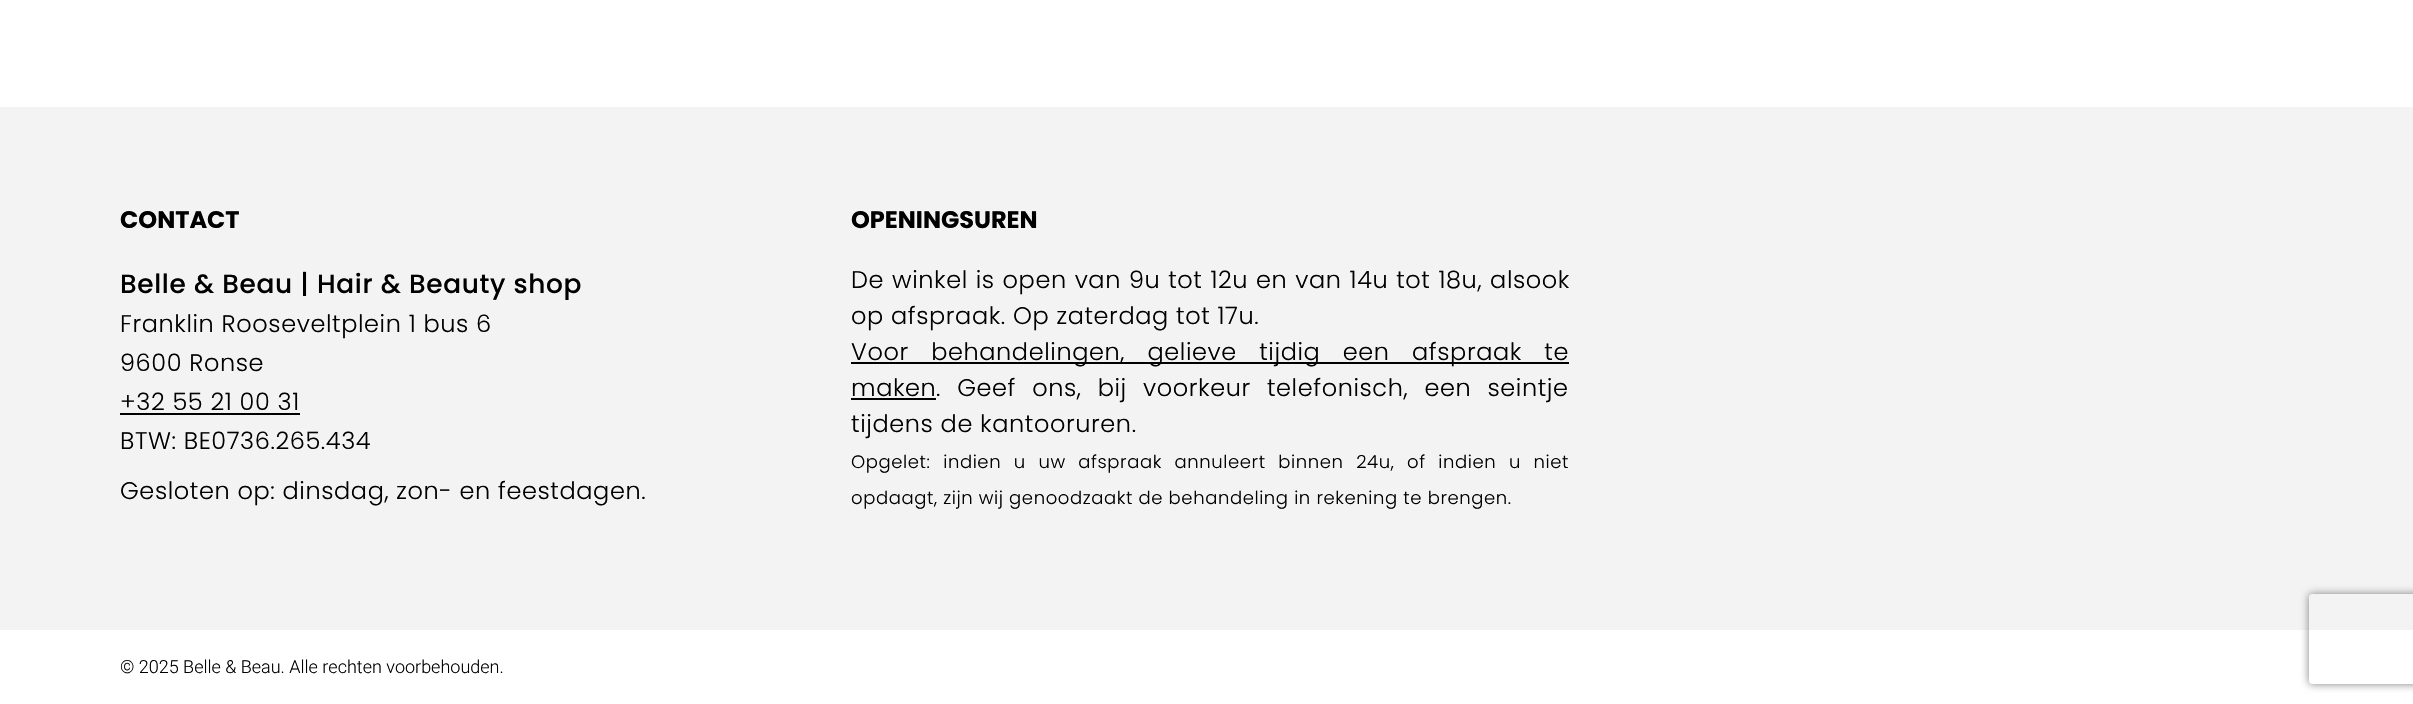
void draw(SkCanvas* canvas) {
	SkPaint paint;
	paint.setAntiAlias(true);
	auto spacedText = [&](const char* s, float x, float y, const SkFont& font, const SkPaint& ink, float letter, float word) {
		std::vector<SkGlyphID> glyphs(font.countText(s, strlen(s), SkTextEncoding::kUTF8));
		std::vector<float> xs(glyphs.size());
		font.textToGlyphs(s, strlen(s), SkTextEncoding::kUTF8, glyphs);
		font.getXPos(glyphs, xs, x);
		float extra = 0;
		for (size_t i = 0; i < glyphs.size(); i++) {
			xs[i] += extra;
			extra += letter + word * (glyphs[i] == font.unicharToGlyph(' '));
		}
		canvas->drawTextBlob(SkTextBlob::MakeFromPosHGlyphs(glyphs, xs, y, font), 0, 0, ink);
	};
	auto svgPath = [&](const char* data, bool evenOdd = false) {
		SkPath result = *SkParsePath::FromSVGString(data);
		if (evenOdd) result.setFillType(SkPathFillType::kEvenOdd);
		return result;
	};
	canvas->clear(0xffffffff);
	paint.setColor(0xfff4f3f4);
	canvas->drawRect(SkRect::MakeXYWH(0, 107, 2413, 523), paint);
	SkFont f1(fontMgr->matchFamilyStyle("Poppins", SkFontStyle::Bold()), 24);
	f1.setSubpixel(true);
	paint.setColor(0xff000000);
	canvas->drawString("CONTACT", 120, 228, f1, paint);
	SkFont f2(fontMgr->matchFamilyStyle("Poppins", SkFontStyle(500, SkFontStyle::kNormal_Width, SkFontStyle::kUpright_Slant)), 26.4);
	f2.setSubpixel(true);
	spacedText("Belle & Beau | Hair & Beauty shop", 120, 293, f2, paint, 0.65, 0);
	SkFont f3(fontMgr->matchFamilyStyle("Poppins", SkFontStyle(300, SkFontStyle::kNormal_Width, SkFontStyle::kUpright_Slant)), 24);
	f3.setSubpixel(true);
	spacedText("Franklin Rooseveltplein 1 bus 6", 120, 332, f3, paint, 0.6, 0);
	spacedText("9600 Ronse", 120, 371, f3, paint, 0.6, 0);
	spacedText("+32 55 21 00 31", 120, 410, f3, paint, 0.6, 0);
	canvas->drawRect(SkRect::MakeXYWH(120, 413, 180, 2), paint);
	spacedText("BTW: BE0736.265.434", 120, 449, f3, paint, 0.6, 0);
	spacedText("Gesloten op: dinsdag, zon- en feestdagen.", 120, 499, f3, paint, 0.6, 0);
	canvas->drawString("OPENINGSUREN", 851, 228, f1, paint);
	spacedText("De winkel is open van 9u tot 12u en van 14u tot 18u, alsook", 851, 288, f3, paint, 0.6, 0.75);
	spacedText("op afspraak. Op zaterdag tot 17u.", 851, 324, f3, paint, 0.6, 0);
	canvas->drawRect(SkRect::MakeXYWH(851, 362, 718, 2), paint);
	spacedText("Voor behandelingen, gelieve tijdig een afspraak te", 851, 360, f3, paint, 0.6, 15.25);
	spacedText("maken", 851, 396, f3, paint, 0.6, 0);
	canvas->drawRect(SkRect::MakeXYWH(851, 398, 85, 2), paint);
	spacedText(". Geef ons, bij voorkeur telefonisch, een seintje", 936, 396, f3, paint, 0.6, 9);
	spacedText("tijdens de kantooruren.", 851, 432, f3, paint, 0.6, 0);
	SkFont f4(fontMgr->matchFamilyStyle("Poppins", SkFontStyle(300, SkFontStyle::kNormal_Width, SkFontStyle::kUpright_Slant)), 18);
	f4.setSubpixel(true);
	spacedText("Opgelet: indien u uw afspraak annuleert binnen 24u, of indien u niet", 851, 468, f4, paint, 0.6, 7.1);
	spacedText("opdaagt, zijn wij genoodzaakt de behandeling in rekening te brengen.", 851, 504, f4, paint, 0.6, 0);
	SkFont f5(fontMgr->matchFamilyStyle("Roboto", SkFontStyle(300, SkFontStyle::kNormal_Width, SkFontStyle::kUpright_Slant)), 18);
	f5.setSubpixel(true);
	canvas->drawString("© 2025 Belle & Beau. Alle rechten voorbehouden.", 120, 673, f5, paint);
	canvas->save();
	canvas->clipPath(svgPath("M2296 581H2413V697H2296ZM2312 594H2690C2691.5 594 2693 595.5 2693 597V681C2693 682.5 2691.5 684 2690 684H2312C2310.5 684 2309 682.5 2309 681V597C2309 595.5 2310.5 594 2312 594Z", true), true);
	paint.setColor(0xff808080);
	paint.setMaskFilter(SkMaskFilter::MakeBlur(kNormal_SkBlurStyle, 4));
	canvas->drawRoundRect(SkRect::MakeXYWH(2309, 594, 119, 90), 3, 3, paint);
	paint.setMaskFilter(nullptr);
	canvas->restore();
}
